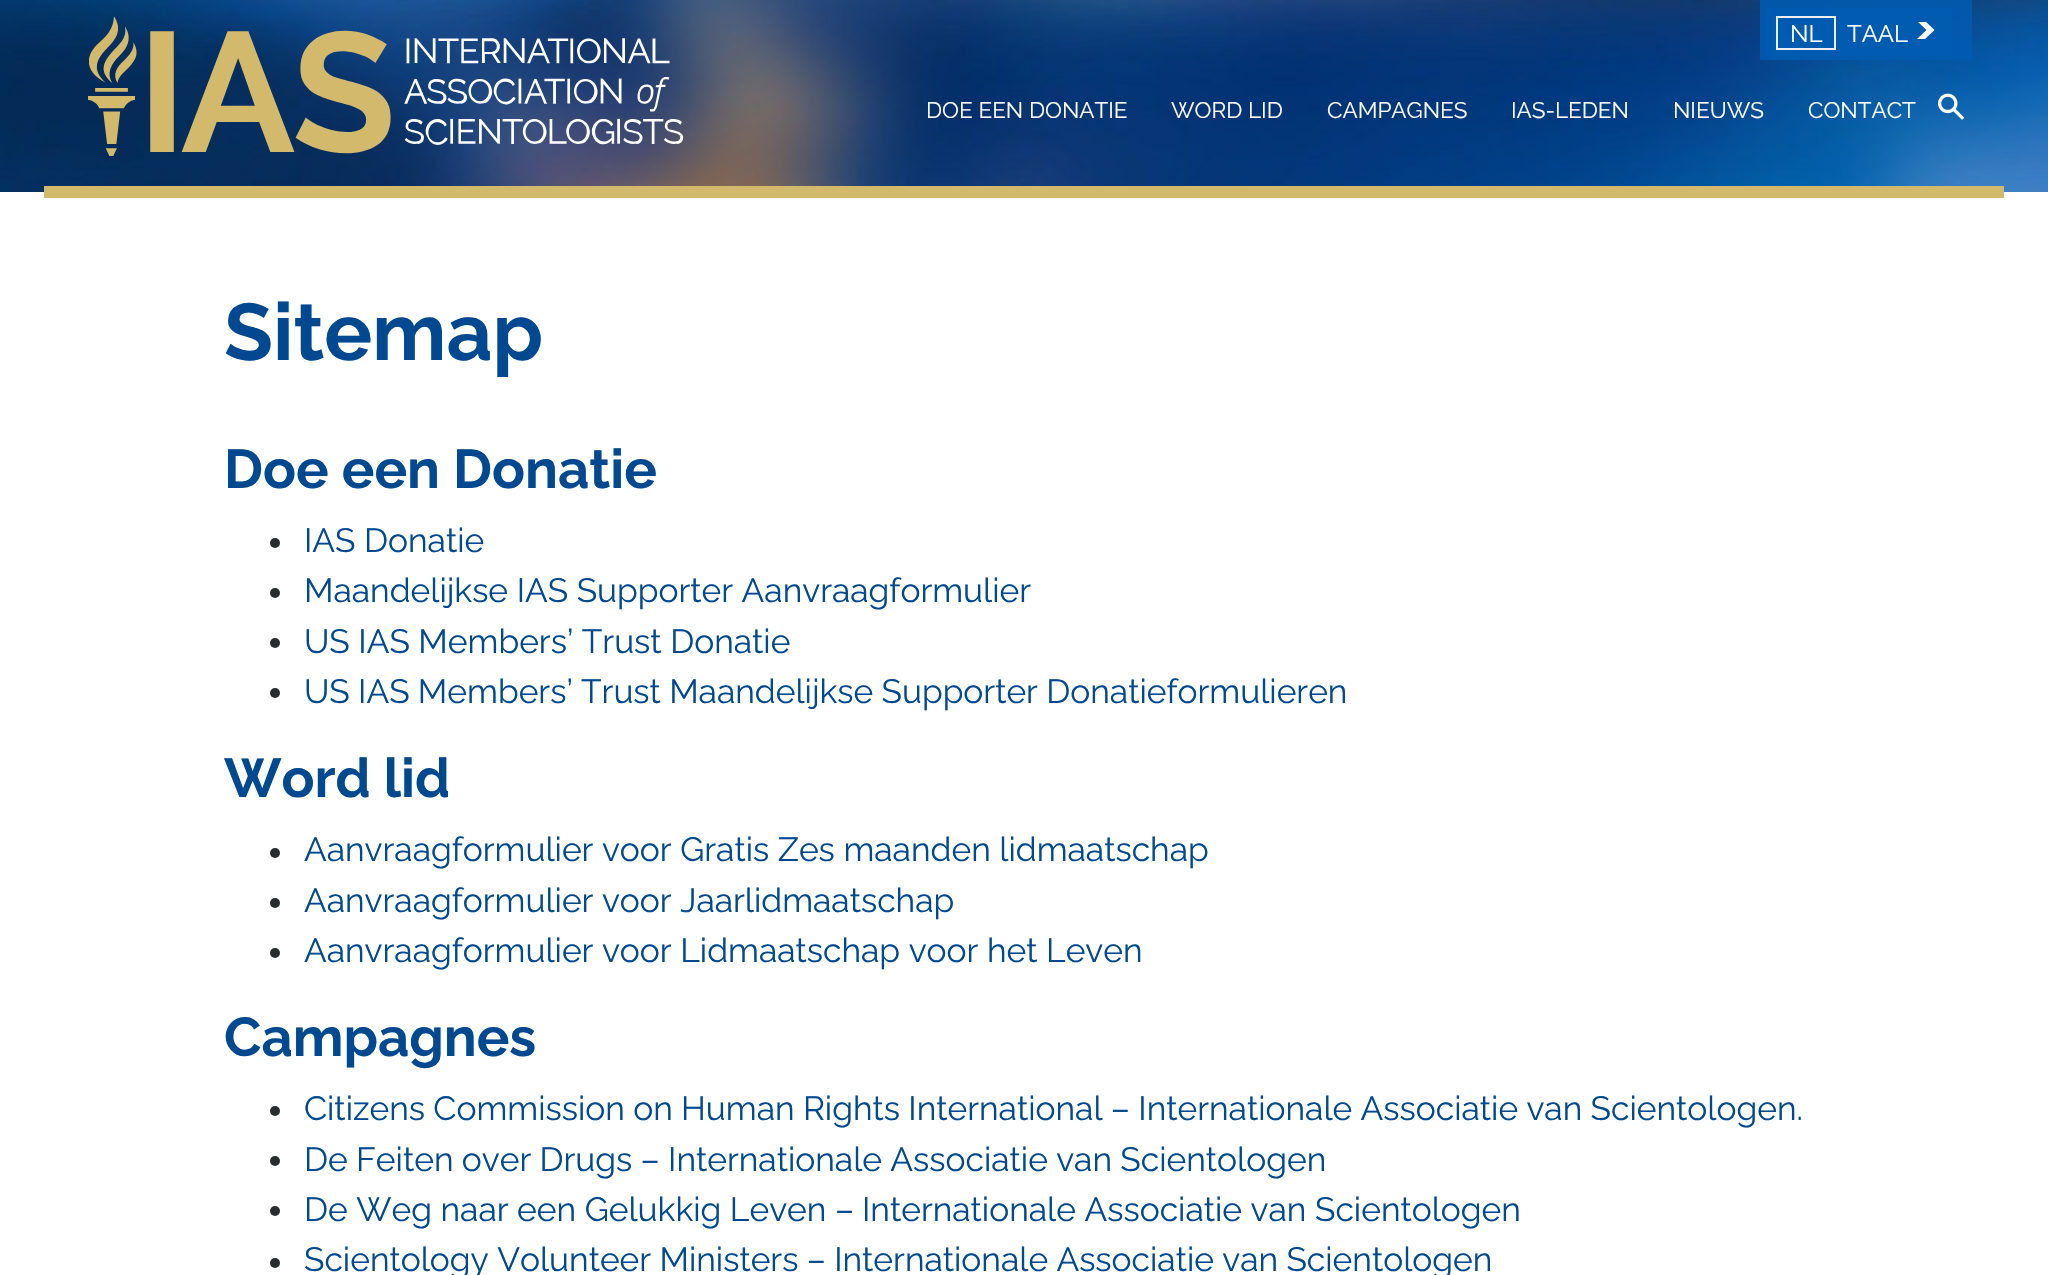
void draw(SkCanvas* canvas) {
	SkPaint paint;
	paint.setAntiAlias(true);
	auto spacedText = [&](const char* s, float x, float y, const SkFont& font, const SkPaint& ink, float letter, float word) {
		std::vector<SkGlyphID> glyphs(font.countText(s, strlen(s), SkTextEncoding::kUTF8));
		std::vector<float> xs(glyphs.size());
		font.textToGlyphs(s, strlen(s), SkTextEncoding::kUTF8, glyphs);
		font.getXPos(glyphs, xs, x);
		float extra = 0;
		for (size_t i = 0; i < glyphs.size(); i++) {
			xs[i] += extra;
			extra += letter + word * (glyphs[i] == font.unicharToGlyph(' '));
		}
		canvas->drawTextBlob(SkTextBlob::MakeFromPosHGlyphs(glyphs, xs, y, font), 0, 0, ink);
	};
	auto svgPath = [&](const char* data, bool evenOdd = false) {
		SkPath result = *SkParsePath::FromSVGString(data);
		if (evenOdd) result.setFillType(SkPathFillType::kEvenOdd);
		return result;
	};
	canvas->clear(0xffffffff);
	canvas->drawImageRect(SkImages::DeferredFromEncodedData(SkData::MakeFromFileName("img1.png")), SkRect::MakeXYWH(0, 0, 2048, 192), SkSamplingOptions());
	canvas->drawImageRect(SkImages::DeferredFromEncodedData(SkData::MakeFromFileName("img2.png")), SkRect::MakeXYWH(88, 16, 596, 140), SkSamplingOptions());
	paint.setColor(0xd9005ab1);
	canvas->drawRect(SkRect::MakeXYWH(1760, 0, 212, 60), paint);
	canvas->drawRect(SkRect::MakeXYWH(1766, 8, 186, 48), paint);
	paint.setStroke(true);
	paint.setStrokeWidth(2);
	paint.setColor(0xffeeeeee);
	canvas->drawRect(SkRect::MakeXYWH(1777, 17, 58, 32), paint);
	SkFont f1(fontMgr->matchFamilyStyle("Raleway", SkFontStyle::Normal()), 24);
	f1.setSubpixel(true);
	paint.setStroke(false);
	paint.setColor(0xffffffff);
	canvas->drawString("NL", 1790, 42, f1, paint);
	canvas->drawString("TAAL", 1847, 42, f1, paint);
	canvas->save();
	canvas->clipRect(SkRect::MakeXYWH(1916, 22, 18, 18));
	canvas->drawPath(svgPath("M1917 39L1926.5 30L1917 21H1925L1934.5 30L1925 39Z", true), paint);
	canvas->restore();
	SkFont f2(fontMgr->matchFamilyStyle("Raleway", SkFontStyle::Normal()), 22.5);
	f2.setSubpixel(true);
	canvas->drawString("DOE EEN DONATIE", 926, 118, f2, paint);
	canvas->drawString("WORD LID", 1171, 118, f2, paint);
	canvas->drawString("CAMPAGNES", 1327, 118, f2, paint);
	canvas->drawString("IAS-LEDEN", 1511, 118, f2, paint);
	canvas->drawString("NIEUWS", 1673, 118, f2, paint);
	canvas->drawString("CONTACT", 1808, 118, f2, paint);
	canvas->drawImageRect(SkImages::DeferredFromEncodedData(SkData::MakeFromFileName("img3.png")), SkRect::MakeXYWH(1938, 93, 26, 27), SkSamplingOptions());
	paint.setColor(0xffd2b96c);
	canvas->drawRect(SkRect::MakeXYWH(44, 186, 1960, 12), paint);
	SkFont f3(fontMgr->matchFamilyStyle("Raleway", SkFontStyle::Bold()), 80);
	f3.setSubpixel(true);
	paint.setColor(0xff004990);
	canvas->drawString("Sitemap", 224, 360, f3, paint);
	SkFont f4(fontMgr->matchFamilyStyle("Raleway", SkFontStyle::Bold()), 54.5);
	f4.setSubpixel(true);
	canvas->drawString("Doe een Donatie", 224, 488, f4, paint);
	paint.setColor(0xff292b2c);
	canvas->drawCircle(275, 543, 5, paint);
	SkFont f5(fontMgr->matchFamilyStyle("Raleway", SkFontStyle::Normal()), 33.6);
	f5.setSubpixel(true);
	paint.setColor(0xff004990);
	canvas->drawString("IAS Donatie", 304, 552, f5, paint);
	paint.setColor(0xff292b2c);
	canvas->drawCircle(275, 593, 5, paint);
	paint.setColor(0xff004990);
	canvas->drawString("Maandelijkse IAS Supporter Aanvraagformulier", 304, 602, f5, paint);
	paint.setColor(0xff292b2c);
	canvas->drawCircle(275, 643, 5, paint);
	paint.setColor(0xff004990);
	canvas->drawString("US IAS Members’ Trust Donatie", 304, 653, f5, paint);
	paint.setColor(0xff292b2c);
	canvas->drawCircle(275, 693, 5, paint);
	paint.setColor(0xff004990);
	spacedText("US IAS Members’ Trust Maandelijkse Supporter Donatieformulieren", 304, 703, f5, paint, 0, -0.25);
	canvas->drawString("Word lid", 224, 797, f4, paint);
	paint.setColor(0xff292b2c);
	canvas->drawCircle(275, 853, 5, paint);
	paint.setColor(0xff004990);
	canvas->drawString("Aanvraagformulier voor Gratis Zes maanden lidmaatschap", 304, 861, f5, paint);
	paint.setColor(0xff292b2c);
	canvas->drawCircle(275, 903, 5, paint);
	paint.setColor(0xff004990);
	canvas->drawString("Aanvraagformulier voor Jaarlidmaatschap", 304, 912, f5, paint);
	paint.setColor(0xff292b2c);
	canvas->drawCircle(275, 953, 5, paint);
	paint.setColor(0xff004990);
	canvas->drawString("Aanvraagformulier voor Lidmaatschap voor het Leven", 304, 962, f5, paint);
	canvas->drawString("Campagnes", 224, 1056, f4, paint);
	paint.setColor(0xff292b2c);
	canvas->drawCircle(275, 1111, 5, paint);
	paint.setColor(0xff004990);
	spacedText("Citizens Commission on Human Rights International – Internationale Associatie van Scientologen.", 304, 1120, f5, paint, 0, -0.25);
	paint.setColor(0xff292b2c);
	canvas->drawCircle(275, 1161, 5, paint);
	paint.setColor(0xff004990);
	spacedText("De Feiten over Drugs – Internationale Associatie van Scientologen", 304, 1171, f5, paint, 0, -0.25);
	paint.setColor(0xff292b2c);
	canvas->drawCircle(275, 1211, 5, paint);
	paint.setColor(0xff004990);
	canvas->drawString("De Weg naar een Gelukkig Leven –", 304, 1221, f5, paint);
	canvas->drawString("Internationale Associatie van Scientologen", 862, 1221, f5, paint);
	paint.setColor(0xff292b2c);
	canvas->drawCircle(275, 1263, 5, paint);
	paint.setColor(0xff004990);
	spacedText("Scientology Volunteer Ministers – Internationale Associatie van Scientologen", 304, 1271, f5, paint, 0, -0.25);
}
